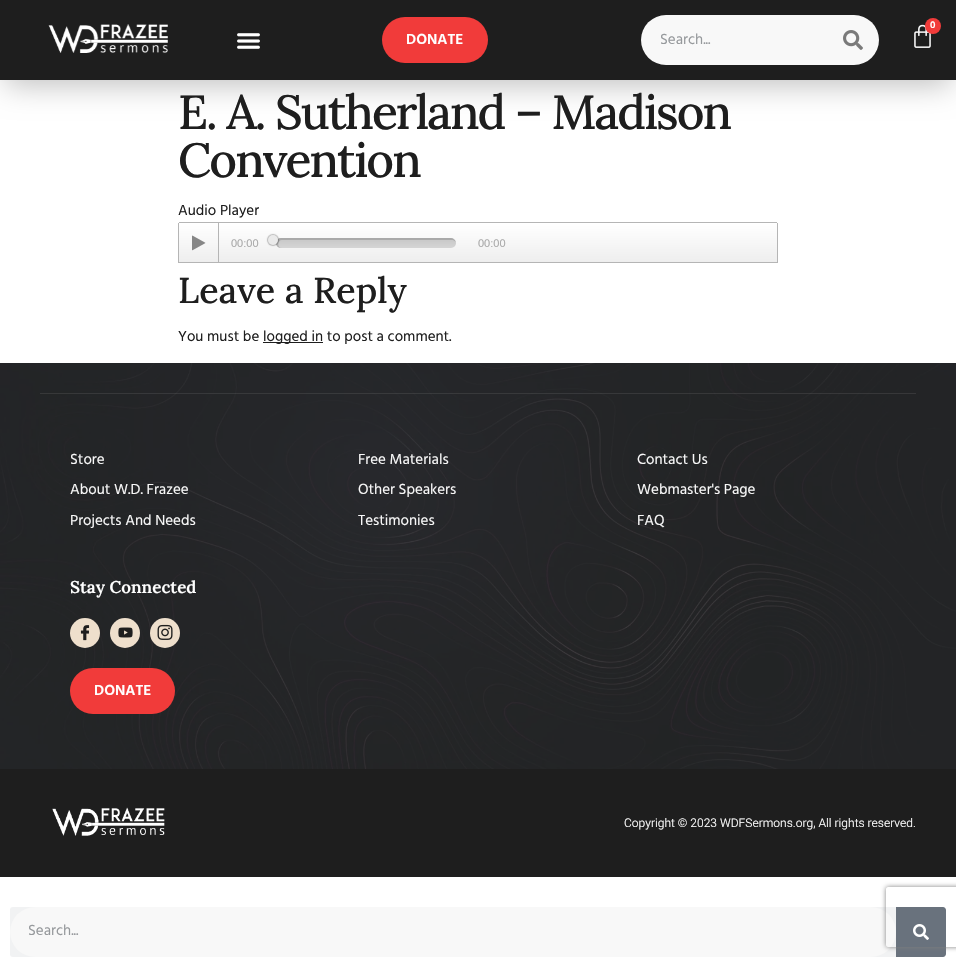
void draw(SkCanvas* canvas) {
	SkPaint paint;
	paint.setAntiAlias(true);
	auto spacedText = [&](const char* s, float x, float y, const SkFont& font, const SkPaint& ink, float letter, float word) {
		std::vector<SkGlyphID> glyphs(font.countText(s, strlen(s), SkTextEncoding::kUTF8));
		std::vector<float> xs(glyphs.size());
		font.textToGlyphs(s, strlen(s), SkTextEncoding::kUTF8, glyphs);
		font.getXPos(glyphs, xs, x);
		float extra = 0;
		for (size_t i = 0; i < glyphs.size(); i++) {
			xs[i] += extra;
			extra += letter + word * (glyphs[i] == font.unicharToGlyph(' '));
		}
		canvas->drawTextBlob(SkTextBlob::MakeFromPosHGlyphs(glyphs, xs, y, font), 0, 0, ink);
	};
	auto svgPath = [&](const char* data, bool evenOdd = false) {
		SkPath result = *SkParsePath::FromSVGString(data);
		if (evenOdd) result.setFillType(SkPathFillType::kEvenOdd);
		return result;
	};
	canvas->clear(0xffffffff);
	paint.setColor(0x40000000);
	paint.setMaskFilter(SkMaskFilter::MakeBlur(kNormal_SkBlurStyle, 15));
	canvas->drawRect(SkRect::MakeXYWH(5, 15, 946, 70), paint);
	paint.setMaskFilter(nullptr);
	paint.setColor(0xff1e1e1e);
	canvas->drawRect(SkRect::MakeXYWH(0, 0, 956, 80), paint);
	canvas->drawImageRect(SkImages::DeferredFromEncodedData(SkData::MakeFromFileName("img1.png")), SkRect::MakeXYWH(48, 24, 120, 29), SkSamplingOptions());
	canvas->drawImageRect(SkImages::DeferredFromEncodedData(SkData::MakeFromFileName("img2.png")), SkRect::MakeXYWH(914, 24, 17, 24), SkSamplingOptions());
	paint.setColor(0xfff13b3a);
	canvas->drawCircle(933, 26, 8, paint);
	SkFont f1(fontMgr->matchFamilyStyle("Hind", SkFontStyle(600, SkFontStyle::kNormal_Width, SkFontStyle::kUpright_Slant)), 10);
	f1.setSubpixel(true);
	paint.setColor(0xffffffff);
	canvas->drawString("0", 930, 28, f1, paint);
	canvas->drawImageRect(SkImages::DeferredFromEncodedData(SkData::MakeFromFileName("img3.png")), SkRect::MakeXYWH(237, 33, 23, 16), SkSamplingOptions());
	paint.setColor(0xfff13b3a);
	canvas->drawRoundRect(SkRect::MakeXYWH(382, 17, 106, 46), 23, 23, paint);
	SkFont f2(fontMgr->matchFamilyStyle("Hind", SkFontStyle(600, SkFontStyle::kNormal_Width, SkFontStyle::kUpright_Slant)), 15);
	f2.setSubpixel(true);
	paint.setColor(0xffffffff);
	canvas->drawString("DONATE", 406, 44, f2, paint);
	paint.setColor(0xfff8f8f8);
	canvas->drawRoundRect(SkRect::MakeXYWH(641, 15, 238, 50), 25, 25, paint);
	SkFont f3(fontMgr->matchFamilyStyle("Hind", SkFontStyle::Normal()), 15);
	f3.setSubpixel(true);
	paint.setColor(0xff96999c);
	canvas->drawString("Search...", 660, 44, f3, paint);
	canvas->drawImageRect(SkImages::DeferredFromEncodedData(SkData::MakeFromFileName("img4.png")), SkRect::MakeXYWH(843, 30, 20, 20), SkSamplingOptions());
	SkFont f4(fontMgr->matchFamilyStyle("Lora", SkFontStyle(500, SkFontStyle::kNormal_Width, SkFontStyle::kUpright_Slant)), 48);
	f4.setSubpixel(true);
	paint.setColor(0xff1e1e1e);
	spacedText("E. A. Sutherland – Madison", 178, 129, f4, paint, -2, 0);
	spacedText("Convention", 178, 177, f4, paint, -2, 0);
	canvas->drawString("Audio Player", 178, 215, f3, paint);
	paint.setStroke(true);
	paint.setStrokeWidth(1);
	paint.setColor(0xffb5b5b5);
	canvas->drawRect(SkRect::MakeXYWH(178.5, 223.5, 599, 39), paint);
	paint.setStroke(false);
	{
		const SkColor colors[] = {0xffeeeeee, 0xffffffff};
		const float stops[] = {0, 1};
		const SkPoint ends[] = {{478, 262}, {478, 223}};
		paint.setShader(SkGradientShader::MakeLinear(ends, colors, stops, 2, SkTileMode::kClamp));
		paint.setAlpha(255);
	}
	canvas->drawRect(SkRect::MakeXYWH(179, 223, 598, 39), paint);
	paint.setShader(nullptr);
	paint.setColor(0xffb5b5b5);
	canvas->drawRect(SkRect::MakeXYWH(179, 222, 598, 1), paint);
	canvas->drawRect(SkRect::MakeXYWH(218, 223, 1, 40), paint);
	canvas->drawImageRect(SkImages::DeferredFromEncodedData(SkData::MakeFromFileName("img5.png")), SkRect::MakeXYWH(192, 235, 14, 16), SkSamplingOptions());
	SkFont f5(fontMgr->matchFamilyStyle("Liberation Sans", SkFontStyle::Normal()), 11);
	f5.setSubpixel(true);
	paint.setColor(0xffaaaaaa);
	canvas->drawString("00:00", 231, 247, f5, paint);
	{
		const SkColor colors[] = {0xffd5d5d5, 0xffc6c6c6};
		const float stops[] = {0, 1};
		const SkPoint ends[] = {{366, 248}, {366, 238}};
		paint.setShader(SkGradientShader::MakeLinear(ends, colors, stops, 2, SkTileMode::kClamp));
		paint.setAlpha(255);
	}
	canvas->drawRoundRect(SkRect::MakeXYWH(276, 238, 180, 10), 5, 5, paint);
	paint.setShader(nullptr);
	paint.setColor(0x26000000);
	canvas->drawPath(svgPath("M282 240H453L456 242C455 240 453 238 451 238H281C278 238 276 240 276 243C276 246 278 248 281 248H282C277 248 277 240 282 240Z"), paint);
	paint.setColor(0x40000000);
	paint.setMaskFilter(SkMaskFilter::MakeBlur(kNormal_SkBlurStyle, 0.5));
	canvas->drawRoundRect(SkRect::MakeXYWH(267, 234, 12, 12), 6, 6, paint);
	paint.setMaskFilter(nullptr);
	paint.setColor(0xffeaeaea);
	canvas->drawCircle(273, 240, 5, paint);
	paint.setColor(0xffaaaaaa);
	canvas->drawString("00:00", 478, 247, f5, paint);
	SkFont f6(fontMgr->matchFamilyStyle("Lora", SkFontStyle(500, SkFontStyle::kNormal_Width, SkFontStyle::kUpright_Slant)), 36);
	f6.setSubpixel(true);
	paint.setColor(0xff1e1e1e);
	canvas->drawString("Leave a Reply", 178, 303, f6, paint);
	canvas->drawString("You must be", 178, 341, f3, paint);
	canvas->drawRect(SkRect::MakeXYWH(263, 342, 60, 1), paint);
	canvas->drawString("logged in to post a comment.", 263, 341, f3, paint);
	canvas->drawImageRect(SkImages::DeferredFromEncodedData(SkData::MakeFromFileName("img6.png")), SkRect::MakeXYWH(0, 363, 956, 406), SkSamplingOptions());
	paint.setColor(0x387a7a7a);
	canvas->drawRect(SkRect::MakeXYWH(40, 393, 876, 1), paint);
	paint.setColor(0xfff8f8f8);
	canvas->drawString("Store", 70, 464, f3, paint);
	canvas->drawString("About W.D. Frazee", 70, 494, f3, paint);
	canvas->drawString("Projects And Needs", 70, 525, f3, paint);
	canvas->drawString("Free Materials", 358, 464, f3, paint);
	canvas->drawString("Other Speakers", 358, 494, f3, paint);
	canvas->drawString("Testimonies", 358, 525, f3, paint);
	canvas->drawString("Contact Us", 637, 464, f3, paint);
	canvas->drawString("Webmaster's Page", 637, 494, f3, paint);
	canvas->drawString("FAQ", 637, 525, f3, paint);
	SkFont f7(fontMgr->matchFamilyStyle("Lora", SkFontStyle(600, SkFontStyle::kNormal_Width, SkFontStyle::kUpright_Slant)), 17);
	f7.setSubpixel(true);
	paint.setColor(0xffffffff);
	canvas->drawString("Stay Connected", 70, 593, f7, paint);
	paint.setColor(0xffeedfcc);
	canvas->drawCircle(85, 633, 15, paint);
	canvas->drawImageRect(SkImages::DeferredFromEncodedData(SkData::MakeFromFileName("img7.png")), SkRect::MakeXYWH(80, 625, 10, 16), SkSamplingOptions());
	canvas->drawCircle(125, 633, 15, paint);
	canvas->drawImageRect(SkImages::DeferredFromEncodedData(SkData::MakeFromFileName("img8.png")), SkRect::MakeXYWH(118, 627, 15, 11), SkSamplingOptions());
	canvas->drawCircle(165, 633, 15, paint);
	canvas->drawImageRect(SkImages::DeferredFromEncodedData(SkData::MakeFromFileName("img9.png")), SkRect::MakeXYWH(157, 624, 16, 16), SkSamplingOptions());
	paint.setColor(0xfff13b3a);
	canvas->drawRoundRect(SkRect::MakeXYWH(70, 668, 105, 46), 23, 23, paint);
	paint.setColor(0xffffffff);
	canvas->drawString("DONATE", 94, 695, f2, paint);
	paint.setColor(0xff1e1e1e);
	canvas->drawRect(SkRect::MakeXYWH(0, 769, 956, 108), paint);
	canvas->drawImageRect(SkImages::DeferredFromEncodedData(SkData::MakeFromFileName("img10.png")), SkRect::MakeXYWH(52, 807, 113, 29), SkSamplingOptions());
	SkFont f8(fontMgr->matchFamilyStyle("Heebo", SkFontStyle(300, SkFontStyle::kNormal_Width, SkFontStyle::kUpright_Slant)), 12);
	f8.setSubpixel(true);
	paint.setColor(0xffffffff);
	canvas->drawString("Copyright © 2023 WDFSermons.org, All rights reserved.", 624, 827, f8, paint);
	paint.setColor(0xfff1f2f3);
	canvas->drawRoundRect(SkRect::MakeXYWH(10, 907, 936, 50), 3, 3, paint);
	paint.setColor(0xfff8f8f8);
	canvas->drawRoundRect(SkRect::MakeXYWH(10, 907, 886, 50), 25, 25, paint);
	paint.setColor(0xff96999c);
	canvas->drawString("Search...", 28, 935, f3, paint);
	paint.setColor(0xff69727d);
	canvas->drawPath(svgPath("M896 907H943C944.5 907 946 908.5 946 910V954C946 955.5 944.5 957 943 957H896Z"), paint);
	canvas->drawImageRect(SkImages::DeferredFromEncodedData(SkData::MakeFromFileName("img11.png")), SkRect::MakeXYWH(913, 924, 16, 16), SkSamplingOptions());
	canvas->save();
	canvas->clipPath(svgPath("M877 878H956V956H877ZM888 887H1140C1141 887 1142 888 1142 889V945C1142 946 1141 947 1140 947H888C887 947 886 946 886 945V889C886 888 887 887 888 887Z", true), true);
	paint.setColor(0xff808080);
	paint.setMaskFilter(SkMaskFilter::MakeBlur(kNormal_SkBlurStyle, 2.5));
	canvas->drawRoundRect(SkRect::MakeXYWH(886, 887, 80, 60), 2, 2, paint);
	paint.setMaskFilter(nullptr);
	canvas->restore();
}
